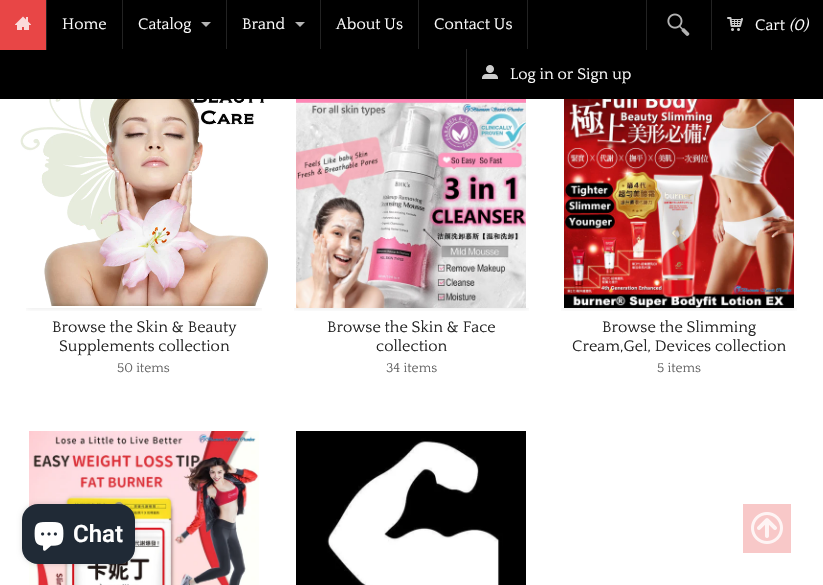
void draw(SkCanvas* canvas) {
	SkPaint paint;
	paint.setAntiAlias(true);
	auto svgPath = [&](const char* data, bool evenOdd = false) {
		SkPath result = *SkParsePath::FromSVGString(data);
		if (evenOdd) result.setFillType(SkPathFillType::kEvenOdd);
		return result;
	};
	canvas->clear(0xffffffff);
	canvas->save();
	canvas->clipRect(SkRect::MakeXYWH(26, 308, 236, 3));
	paint.setColor(0x1a000000);
	paint.setMaskFilter(SkMaskFilter::MakeBlur(kNormal_SkBlurStyle, 3));
	canvas->drawRect(SkRect::MakeXYWH(26, 90, 236, 218), paint);
	paint.setMaskFilter(nullptr);
	canvas->restore();
	canvas->save();
	canvas->clipRect(SkRect::MakeXYWH(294, 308, 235, 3));
	paint.setMaskFilter(SkMaskFilter::MakeBlur(kNormal_SkBlurStyle, 3));
	canvas->drawRect(SkRect::MakeXYWH(294, 90, 235, 218), paint);
	paint.setMaskFilter(nullptr);
	canvas->restore();
	canvas->save();
	canvas->clipRect(SkRect::MakeXYWH(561, 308, 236, 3));
	paint.setMaskFilter(SkMaskFilter::MakeBlur(kNormal_SkBlurStyle, 3));
	canvas->drawRect(SkRect::MakeXYWH(561, 90, 236, 218), paint);
	paint.setMaskFilter(nullptr);
	canvas->restore();
	paint.setColor(0xff000000);
	canvas->drawRect(SkRect::MakeXYWH(0, 0, 823, 99), paint);
	paint.setColor(0xff222222);
	canvas->drawRect(SkRect::MakeXYWH(46, 0, 1, 50), paint);
	paint.setColor(0xffe84646);
	canvas->drawRect(SkRect::MakeXYWH(0, 0, 46, 50), paint);
	canvas->drawImageRect(SkImages::DeferredFromEncodedData(SkData::MakeFromFileName("img1.png")), SkRect::MakeXYWH(15, 16, 16, 14), SkSamplingOptions());
	paint.setColor(0xff222222);
	canvas->drawRect(SkRect::MakeXYWH(122, 0, 1, 49), paint);
	SkFont f1(fontMgr->matchFamilyStyle("Quattrocento", SkFontStyle::Normal()), 16);
	f1.setSubpixel(true);
	paint.setColor(0xffffffff);
	canvas->drawString("Home", 62, 29, f1, paint);
	paint.setColor(0xff222222);
	canvas->drawRect(SkRect::MakeXYWH(226, 0, 1, 49), paint);
	paint.setColor(0xffffffff);
	canvas->drawString("Catalog", 138, 29, f1, paint);
	paint.setColor(0xffb3b3b3);
	canvas->drawPath(svgPath("M201 22H211L206 27Z"), paint);
	paint.setColor(0xff222222);
	canvas->drawRect(SkRect::MakeXYWH(320, 0, 1, 49), paint);
	paint.setColor(0xffffffff);
	canvas->drawString("Brand", 242, 29, f1, paint);
	paint.setColor(0xffb3b3b3);
	canvas->drawPath(svgPath("M295 22H305L300 27Z"), paint);
	paint.setColor(0xff222222);
	canvas->drawRect(SkRect::MakeXYWH(418, 0, 1, 49), paint);
	paint.setColor(0xffffffff);
	canvas->drawString("About Us", 336, 29, f1, paint);
	paint.setColor(0xff222222);
	canvas->drawRect(SkRect::MakeXYWH(527, 0, 1, 49), paint);
	paint.setColor(0xffffffff);
	canvas->drawString("Contact Us", 434, 29, f1, paint);
	paint.setColor(0xff222222);
	canvas->drawRect(SkRect::MakeXYWH(646, 0, 1, 50), paint);
	canvas->drawImageRect(SkImages::DeferredFromEncodedData(SkData::MakeFromFileName("img2.png")), SkRect::MakeXYWH(667, 13, 23, 23), SkSamplingOptions());
	canvas->drawRect(SkRect::MakeXYWH(711, 0, 1, 50), paint);
	canvas->drawImageRect(SkImages::DeferredFromEncodedData(SkData::MakeFromFileName("img3.png")), SkRect::MakeXYWH(727, 17, 16, 14), SkSamplingOptions());
	paint.setColor(0xffffffff);
	canvas->drawString("Cart", 755, 30, f1, paint);
	SkFont f2(fontMgr->matchFamilyStyle("Quattrocento", SkFontStyle::Italic()), 16);
	f2.setSubpixel(true);
	canvas->drawString("(0)", 789, 30, f2, paint);
	paint.setColor(0xff222222);
	canvas->drawRect(SkRect::MakeXYWH(466, 49, 1, 50), paint);
	canvas->drawImageRect(SkImages::DeferredFromEncodedData(SkData::MakeFromFileName("img4.png")), SkRect::MakeXYWH(482, 65, 16, 14), SkSamplingOptions());
	paint.setColor(0xffffffff);
	canvas->drawString("Log in or Sign up", 510, 79, f1, paint);
	canvas->drawImageRect(SkImages::DeferredFromEncodedData(SkData::MakeFromFileName("img5.png")), SkRect::MakeXYWH(20, 99, 248, 207), SkSamplingOptions());
	paint.setColor(0xff222222);
	canvas->drawString("Browse the Skin & Beauty", 52, 332, f1, paint);
	canvas->drawString("Supplements collection", 59, 351, f1, paint);
	SkFont f3(fontMgr->matchFamilyStyle("Quattrocento", SkFontStyle::Normal()), 13.5);
	f3.setSubpixel(true);
	paint.setColor(0xff646464);
	canvas->drawString("50 items", 117, 372, f3, paint);
	canvas->drawImageRect(SkImages::DeferredFromEncodedData(SkData::MakeFromFileName("img6.png")), SkRect::MakeXYWH(296, 99, 230, 209), SkSamplingOptions());
	paint.setColor(0xff222222);
	canvas->drawString("Browse the Skin & Face", 327, 332, f1, paint);
	canvas->drawString("collection", 376, 351, f1, paint);
	paint.setColor(0xff646464);
	canvas->drawString("34 items", 386, 372, f3, paint);
	canvas->drawImageRect(SkImages::DeferredFromEncodedData(SkData::MakeFromFileName("img7.png")), SkRect::MakeXYWH(564, 99, 230, 209), SkSamplingOptions());
	paint.setColor(0xff222222);
	canvas->drawString("Browse the Slimming", 602, 332, f1, paint);
	canvas->drawString("Cream,Gel, Devices collection", 572, 351, f1, paint);
	paint.setColor(0xff646464);
	canvas->drawString("5 items", 657, 372, f3, paint);
	canvas->drawImageRect(SkImages::DeferredFromEncodedData(SkData::MakeFromFileName("img8.png")), SkRect::MakeXYWH(29, 431, 230, 154), SkSamplingOptions());
	canvas->drawImageRect(SkImages::DeferredFromEncodedData(SkData::MakeFromFileName("img9.png")), SkRect::MakeXYWH(296, 431, 230, 154), SkSamplingOptions());
	paint.setColor(0x26000000);
	paint.setMaskFilter(SkMaskFilter::MakeBlur(kNormal_SkBlurStyle, 2.5));
	canvas->drawRoundRect(SkRect::MakeXYWH(22, 504, 113, 60), 16, 16, paint);
	paint.setMaskFilter(nullptr);
	paint.setColor(0xff202a36);
	canvas->drawRoundRect(SkRect::MakeXYWH(22, 504, 113, 60), 16, 16, paint);
	canvas->drawImageRect(SkImages::DeferredFromEncodedData(SkData::MakeFromFileName("img10.png")), SkRect::MakeXYWH(34, 522, 30, 29), SkSamplingOptions());
	SkFont f4(fontMgr->matchFamilyStyle("Roboto", SkFontStyle(600, SkFontStyle::kNormal_Width, SkFontStyle::kUpright_Slant)), 24);
	f4.setSubpixel(true);
	paint.setColor(0xffffffff);
	canvas->drawString("Chat", 73, 542, f4, paint);
	paint.setColor(0xfff8c8c8);
	canvas->drawRect(SkRect::MakeXYWH(743, 504, 48, 49), paint);
	canvas->drawImageRect(SkImages::DeferredFromEncodedData(SkData::MakeFromFileName("img11.png")), SkRect::MakeXYWH(751, 512, 32, 32), SkSamplingOptions());
}
